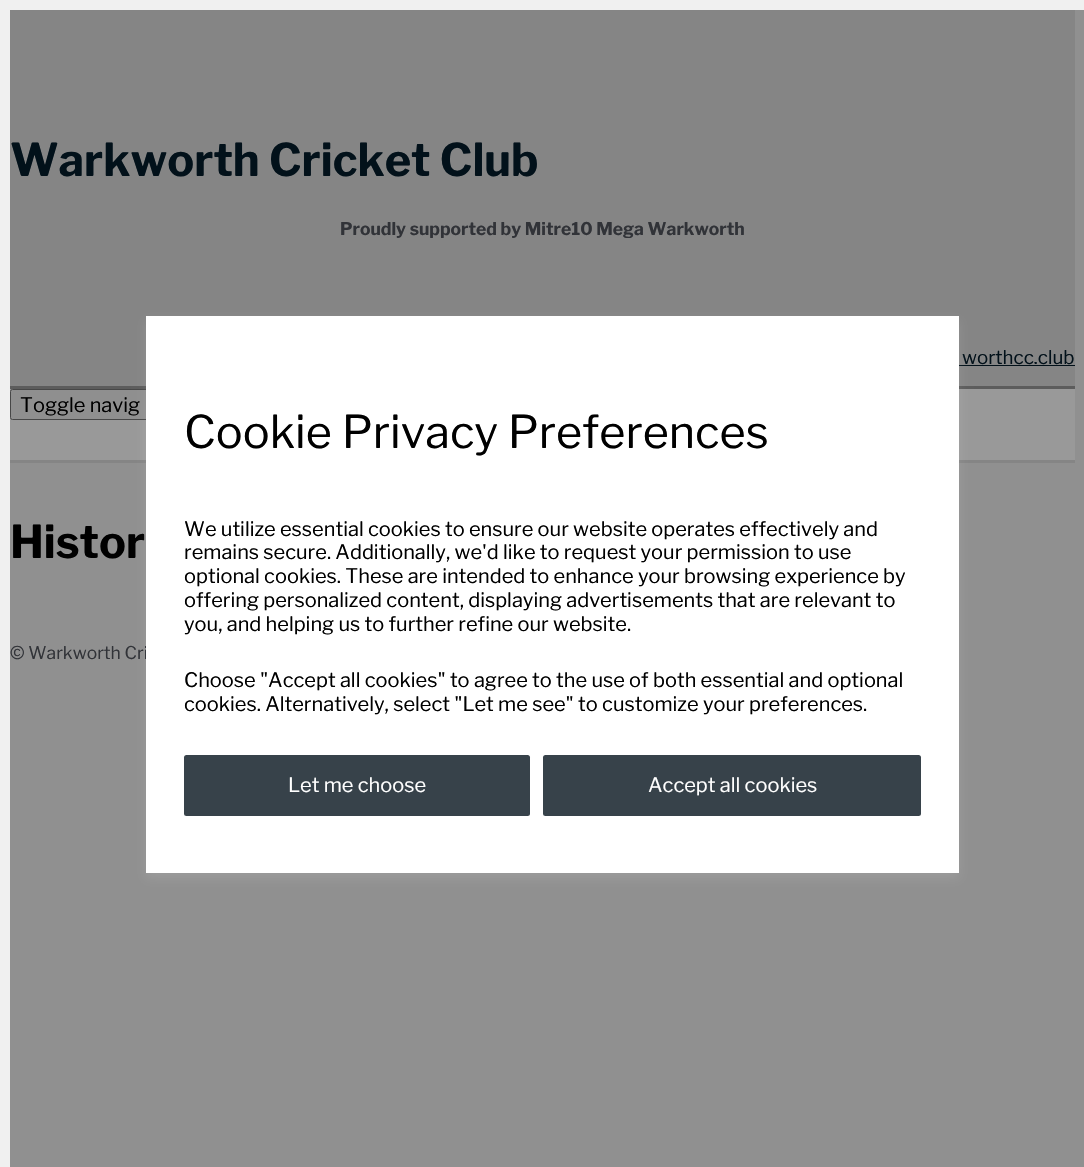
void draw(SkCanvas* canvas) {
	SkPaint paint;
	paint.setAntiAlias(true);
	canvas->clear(0xfff0f0f0);
	paint.setColor(0xff909090);
	canvas->drawRect(SkRect::MakeXYWH(10, 10, 1074, 1157), paint);
	paint.setColor(0xff858585);
	canvas->drawRect(SkRect::MakeXYWH(10, 10, 1065, 376), paint);
	paint.setColor(0xff5c5c5c);
	canvas->drawRect(SkRect::MakeXYWH(10, 386, 1065, 3), paint);
	SkFont f1(fontMgr->matchFamilyStyle("Libre Franklin", SkFontStyle::Bold()), 45);
	f1.setSubpixel(true);
	paint.setColor(0xff02111a);
	canvas->drawString("Warkworth Cricket Club", 10, 176, f1, paint);
	SkFont f2(fontMgr->matchFamilyStyle("Libre Franklin", SkFontStyle::Bold()), 17.5);
	f2.setSubpixel(true);
	paint.setColor(0xff313338);
	canvas->drawString("Proudly supported by Mitre10 Mega Warkworth", 340, 235, f2, paint);
	SkFont f3(fontMgr->matchFamilyStyle("Libre Franklin", SkFontStyle::Normal()), 18.75);
	f3.setSubpixel(true);
	paint.setColor(0xff02111a);
	canvas->drawString("worthcc.club", 962, 364, f3, paint);
	canvas->drawRect(SkRect::MakeXYWH(959, 365, 116, 1), paint);
	paint.setColor(0xff999999);
	canvas->drawRect(SkRect::MakeXYWH(10, 389, 1065, 71), paint);
	paint.setColor(0xff858585);
	canvas->drawRect(SkRect::MakeXYWH(10, 460, 1065, 3), paint);
	paint.setColor(0xff8f8f8f);
	canvas->drawRoundRect(SkRect::MakeXYWH(10.5, 389.5, 187, 30), 2, 2, paint);
	paint.setStroke(true);
	paint.setStrokeWidth(1);
	paint.setColor(0xff474747);
	canvas->drawRoundRect(SkRect::MakeXYWH(10.5, 389.5, 187, 30), 2, 2, paint);
	SkFont f4(fontMgr->matchFamilyStyle("Libre Franklin", SkFontStyle::Normal()), 20);
	f4.setSubpixel(true);
	paint.setStroke(false);
	paint.setColor(0xff000000);
	canvas->drawString("Toggle navig", 20, 412, f4, paint);
	canvas->drawString("Histor", 10, 558, f1, paint);
	paint.setColor(0x1affffff);
	paint.setMaskFilter(SkMaskFilter::MakeBlur(kNormal_SkBlurStyle, 5));
	canvas->drawRect(SkRect::MakeXYWH(146, 321, 813, 557), paint);
	paint.setMaskFilter(nullptr);
	SkFont f5(fontMgr->matchFamilyStyle("Libre Franklin", SkFontStyle::Normal()), 17.5);
	f5.setSubpixel(true);
	paint.setColor(0xff313338);
	canvas->drawString("© Warkworth Cri", 10, 659, f5, paint);
	paint.setColor(0xffffffff);
	canvas->drawRect(SkRect::MakeXYWH(146, 316, 813, 557), paint);
	SkFont f6(fontMgr->matchFamilyStyle("Libre Franklin", SkFontStyle::Normal()), 45);
	f6.setSubpixel(true);
	paint.setColor(0xff000000);
	canvas->drawString("Cookie Privacy Preferences", 184, 448, f6, paint);
	canvas->drawString("We utilize essential cookies to ensure our website operates effectively and", 184, 536, f4, paint);
	canvas->drawString("remains secure. Additionally, we'd like to request your permission to use", 184, 559, f4, paint);
	canvas->drawString("optional cookies. These are intended to enhance your browsing experience by", 184, 583, f4, paint);
	canvas->drawString("offering personalized content, displaying advertisements that are relevant to", 184, 607, f4, paint);
	canvas->drawString("you, and helping us to further refine our website.", 184, 631, f4, paint);
	canvas->drawString("Choose \"Accept all cookies\" to agree to the use of both essential and optional", 184, 687, f4, paint);
	canvas->drawString("cookies. Alternatively, select \"Let me see\" to customize your preferences.", 184, 711, f4, paint);
	paint.setColor(0xff37424a);
	canvas->drawRoundRect(SkRect::MakeXYWH(184, 755, 346, 61), 2.5, 2.5, paint);
	paint.setColor(0xffffffff);
	canvas->drawString("Let me choose", 288, 792, f4, paint);
	paint.setColor(0xff37424a);
	canvas->drawRoundRect(SkRect::MakeXYWH(543, 755, 378, 61), 2.5, 2.5, paint);
	paint.setColor(0xffffffff);
	canvas->drawString("Accept all cookies", 648, 792, f4, paint);
}
